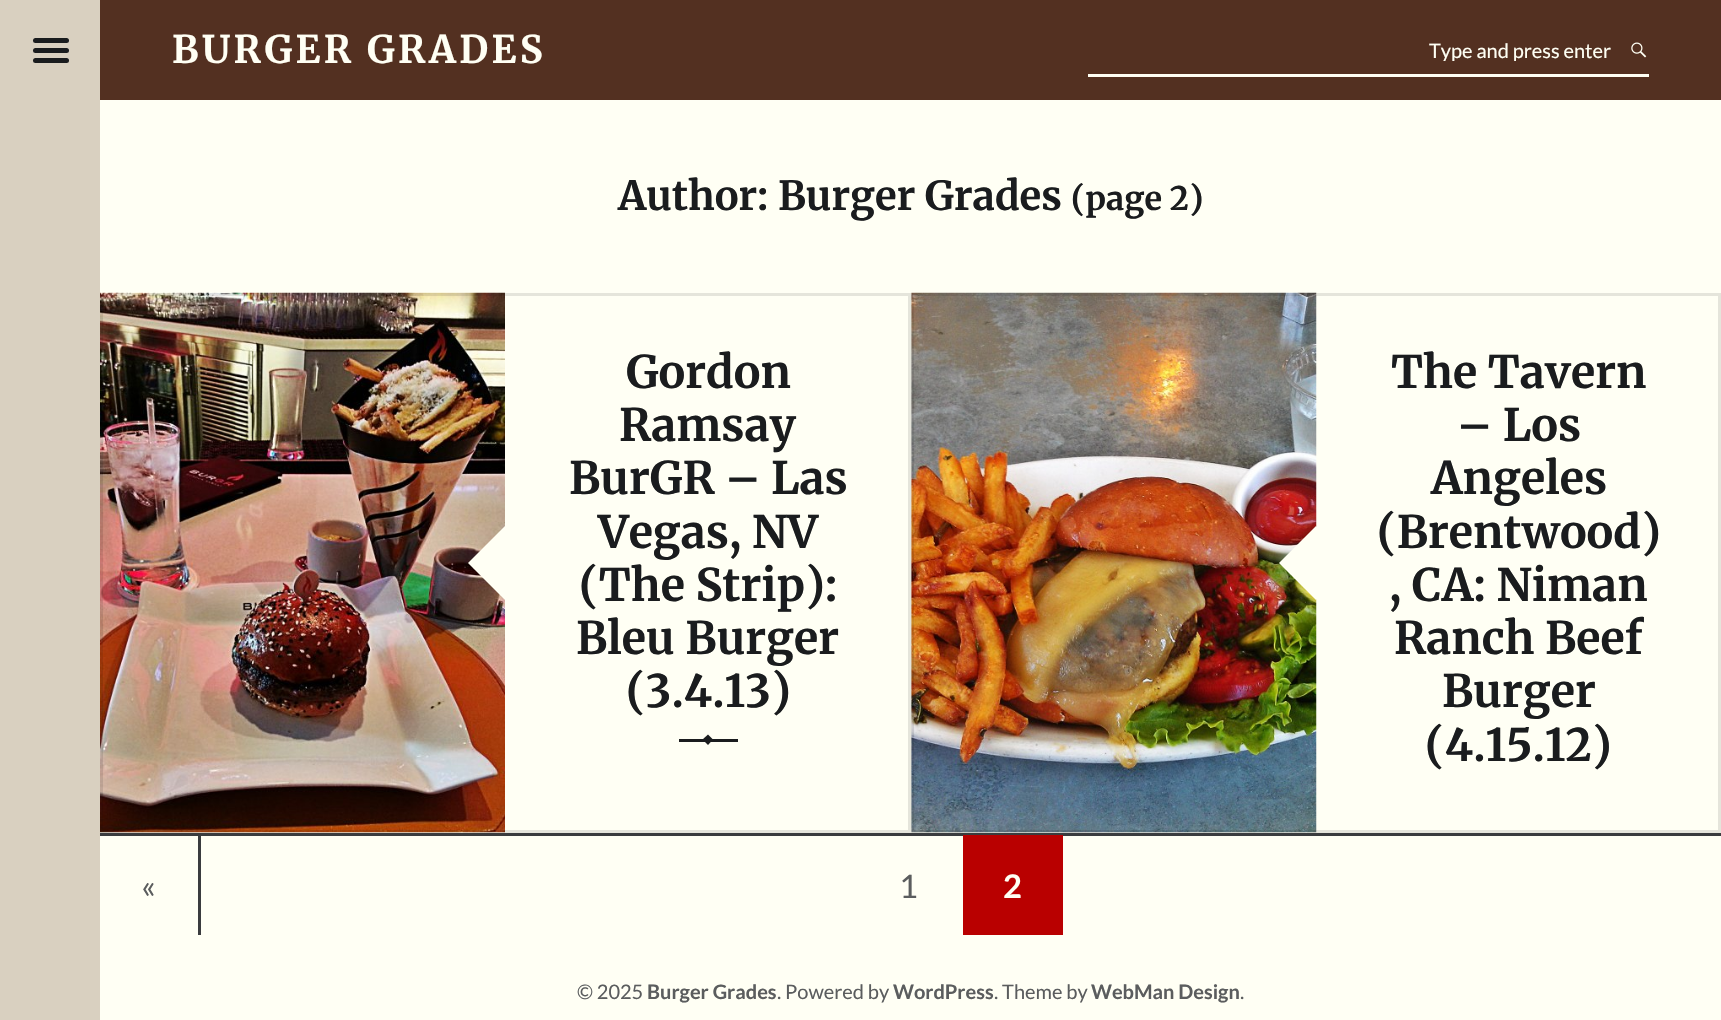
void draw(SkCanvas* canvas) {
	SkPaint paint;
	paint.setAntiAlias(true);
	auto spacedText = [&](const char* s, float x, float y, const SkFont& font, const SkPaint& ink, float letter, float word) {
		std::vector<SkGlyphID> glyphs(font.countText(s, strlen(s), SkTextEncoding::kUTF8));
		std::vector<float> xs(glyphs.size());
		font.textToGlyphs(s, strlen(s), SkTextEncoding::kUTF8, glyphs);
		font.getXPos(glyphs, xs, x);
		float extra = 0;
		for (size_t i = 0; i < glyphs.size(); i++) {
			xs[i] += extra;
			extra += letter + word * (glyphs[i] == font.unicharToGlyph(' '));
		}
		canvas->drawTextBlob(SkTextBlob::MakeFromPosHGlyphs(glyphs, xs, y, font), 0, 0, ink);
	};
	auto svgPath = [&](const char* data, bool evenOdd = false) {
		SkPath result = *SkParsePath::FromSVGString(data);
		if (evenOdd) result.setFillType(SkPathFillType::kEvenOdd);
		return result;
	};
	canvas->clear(0xfffffff4);
	paint.setColor(0xff533021);
	canvas->drawRect(SkRect::MakeXYWH(100, 0, 1621, 100), paint);
	paint.setColor(0xffd9d0c0);
	canvas->drawRect(SkRect::MakeXYWH(0, 0, 100, 1020), paint);
	paint.setColor(0xff1a1c1e);
	canvas->drawRoundRect(SkRect::MakeXYWH(33, 38, 36, 5), 2.5, 2.5, paint);
	canvas->drawRoundRect(SkRect::MakeXYWH(33, 48, 36, 5), 2.5, 2.5, paint);
	canvas->drawRoundRect(SkRect::MakeXYWH(33, 58, 36, 5), 2.5, 2.5, paint);
	SkFont f1(fontMgr->matchFamilyStyle("Merriweather", SkFontStyle::Bold()), 38);
	f1.setSubpixel(true);
	paint.setColor(0xfffffff4);
	spacedText("BURGER GRADES", 172, 63, f1, paint, 3.4, 0);
	canvas->drawRect(SkRect::MakeXYWH(1088, 74, 561, 3), paint);
	canvas->save();
	canvas->clipRect(SkRect::MakeXYWH(1100, 38, 511, 23));
	SkFont f2(fontMgr->matchFamilyStyle("Lato", SkFontStyle::Normal()), 20);
	f2.setSubpixel(true);
	canvas->drawString("Type and press enter", 1429, 58, f2, paint);
	canvas->restore();
	canvas->drawImageRect(SkImages::DeferredFromEncodedData(SkData::MakeFromFileName("img1.png")), SkRect::MakeXYWH(1631, 42, 16, 16), SkSamplingOptions());
	SkFont f3(fontMgr->matchFamilyStyle("Merriweather", SkFontStyle::Bold()), 40);
	f3.setSubpixel(true);
	paint.setColor(0xff1a1c1e);
	canvas->drawString("Author: Burger Grades", 618, 210, f3, paint);
	SkFont f4(fontMgr->matchFamilyStyle("Merriweather", SkFontStyle::Bold()), 32.5);
	f4.setSubpixel(true);
	canvas->drawString("(page 2)", 1071, 210, f4, paint);
	canvas->drawImageRect(SkImages::DeferredFromEncodedData(SkData::MakeFromFileName("img2.png")), SkRect::MakeXYWH(100, 292, 405, 541), SkSamplingOptions());
	paint.setColor(0xfffffff4);
	canvas->drawPath(svgPath("M505 526L542 563L505 600L468 563Z"), paint);
	paint.setColor(0xff1a1c1e);
	canvas->drawRect(SkRect::MakeXYWH(679, 739, 59, 3), paint);
	canvas->drawPath(svgPath("M708 734.5L713 739.5L708 745L702.5 739.5Z"), paint);
	paint.setStroke(true);
	paint.setStrokeWidth(3);
	paint.setColor(0x1a000000);
	canvas->drawRect(SkRect::MakeXYWH(101.5, 294.5, 808, 537), paint);
	SkFont f5(fontMgr->matchFamilyStyle("Merriweather", SkFontStyle::Bold()), 44.75);
	f5.setSubpixel(true);
	paint.setStroke(false);
	paint.setColor(0xff1a1c1e);
	canvas->drawString("Gordon", 626, 388, f5, paint);
	canvas->drawString("Ramsay", 619, 441, f5, paint);
	canvas->drawString("BurGR – Las", 569, 494, f5, paint);
	canvas->drawString("Vegas, NV", 598, 548, f5, paint);
	canvas->drawString("(The Strip):", 579, 601, f5, paint);
	canvas->drawString("Bleu Burger", 576, 654, f5, paint);
	canvas->drawString("(3.4.13)", 626, 707, f5, paint);
	canvas->drawImageRect(SkImages::DeferredFromEncodedData(SkData::MakeFromFileName("img3.png")), SkRect::MakeXYWH(911, 292, 406, 541), SkSamplingOptions());
	paint.setColor(0xfffffff4);
	canvas->drawPath(svgPath("M1316 526L1353 563L1316 600L1279 563Z"), paint);
	paint.setStroke(true);
	paint.setColor(0x1a000000);
	canvas->drawRect(SkRect::MakeXYWH(912.5, 294.5, 807, 537), paint);
	paint.setStroke(false);
	paint.setColor(0xff1a1c1e);
	canvas->drawString("The Tavern", 1391, 388, f5, paint);
	canvas->drawString("– Los", 1457, 441, f5, paint);
	canvas->drawString("Angeles", 1431, 494, f5, paint);
	canvas->drawString("(Brentwood)", 1377, 548, f5, paint);
	canvas->drawString(", CA: Niman", 1389, 601, f5, paint);
	canvas->drawString("Ranch Beef", 1394, 654, f5, paint);
	canvas->drawString("Burger", 1442, 707, f5, paint);
	canvas->drawString("(4.15.12)", 1425, 761, f5, paint);
	paint.setColor(0xff3a3c3e);
	canvas->drawRect(SkRect::MakeXYWH(100, 833, 1621, 3), paint);
	canvas->drawRect(SkRect::MakeXYWH(198, 835, 3, 100), paint);
	SkFont f6(fontMgr->matchFamilyStyle("Lato", SkFontStyle::Normal()), 32.5);
	f6.setSubpixel(true);
	paint.setColor(0xff5b5d5e);
	canvas->drawString("«", 141, 898, f6, paint);
	canvas->drawString("1", 899, 898, f6, paint);
	paint.setColor(0xffb90000);
	canvas->drawRect(SkRect::MakeXYWH(963, 835, 100, 100), paint);
	SkFont f7(fontMgr->matchFamilyStyle("Lato", SkFontStyle::Bold()), 32.5);
	f7.setSubpixel(true);
	paint.setColor(0xfffffff4);
	canvas->drawString("2", 1003, 898, f7, paint);
	paint.setColor(0xff5b5d5e);
	canvas->drawString("© 2025", 577, 999, f2, paint);
	SkFont f8(fontMgr->matchFamilyStyle("Lato", SkFontStyle::Bold()), 20);
	f8.setSubpixel(true);
	canvas->drawString("Burger Grades", 647, 999, f8, paint);
	canvas->drawString(". Powered by", 777, 999, f2, paint);
	canvas->drawString("WordPress", 893, 999, f8, paint);
	canvas->drawString(". Theme by", 994, 999, f2, paint);
	canvas->drawString("WebMan Design", 1091, 999, f8, paint);
	canvas->drawString(".", 1240, 999, f2, paint);
}
